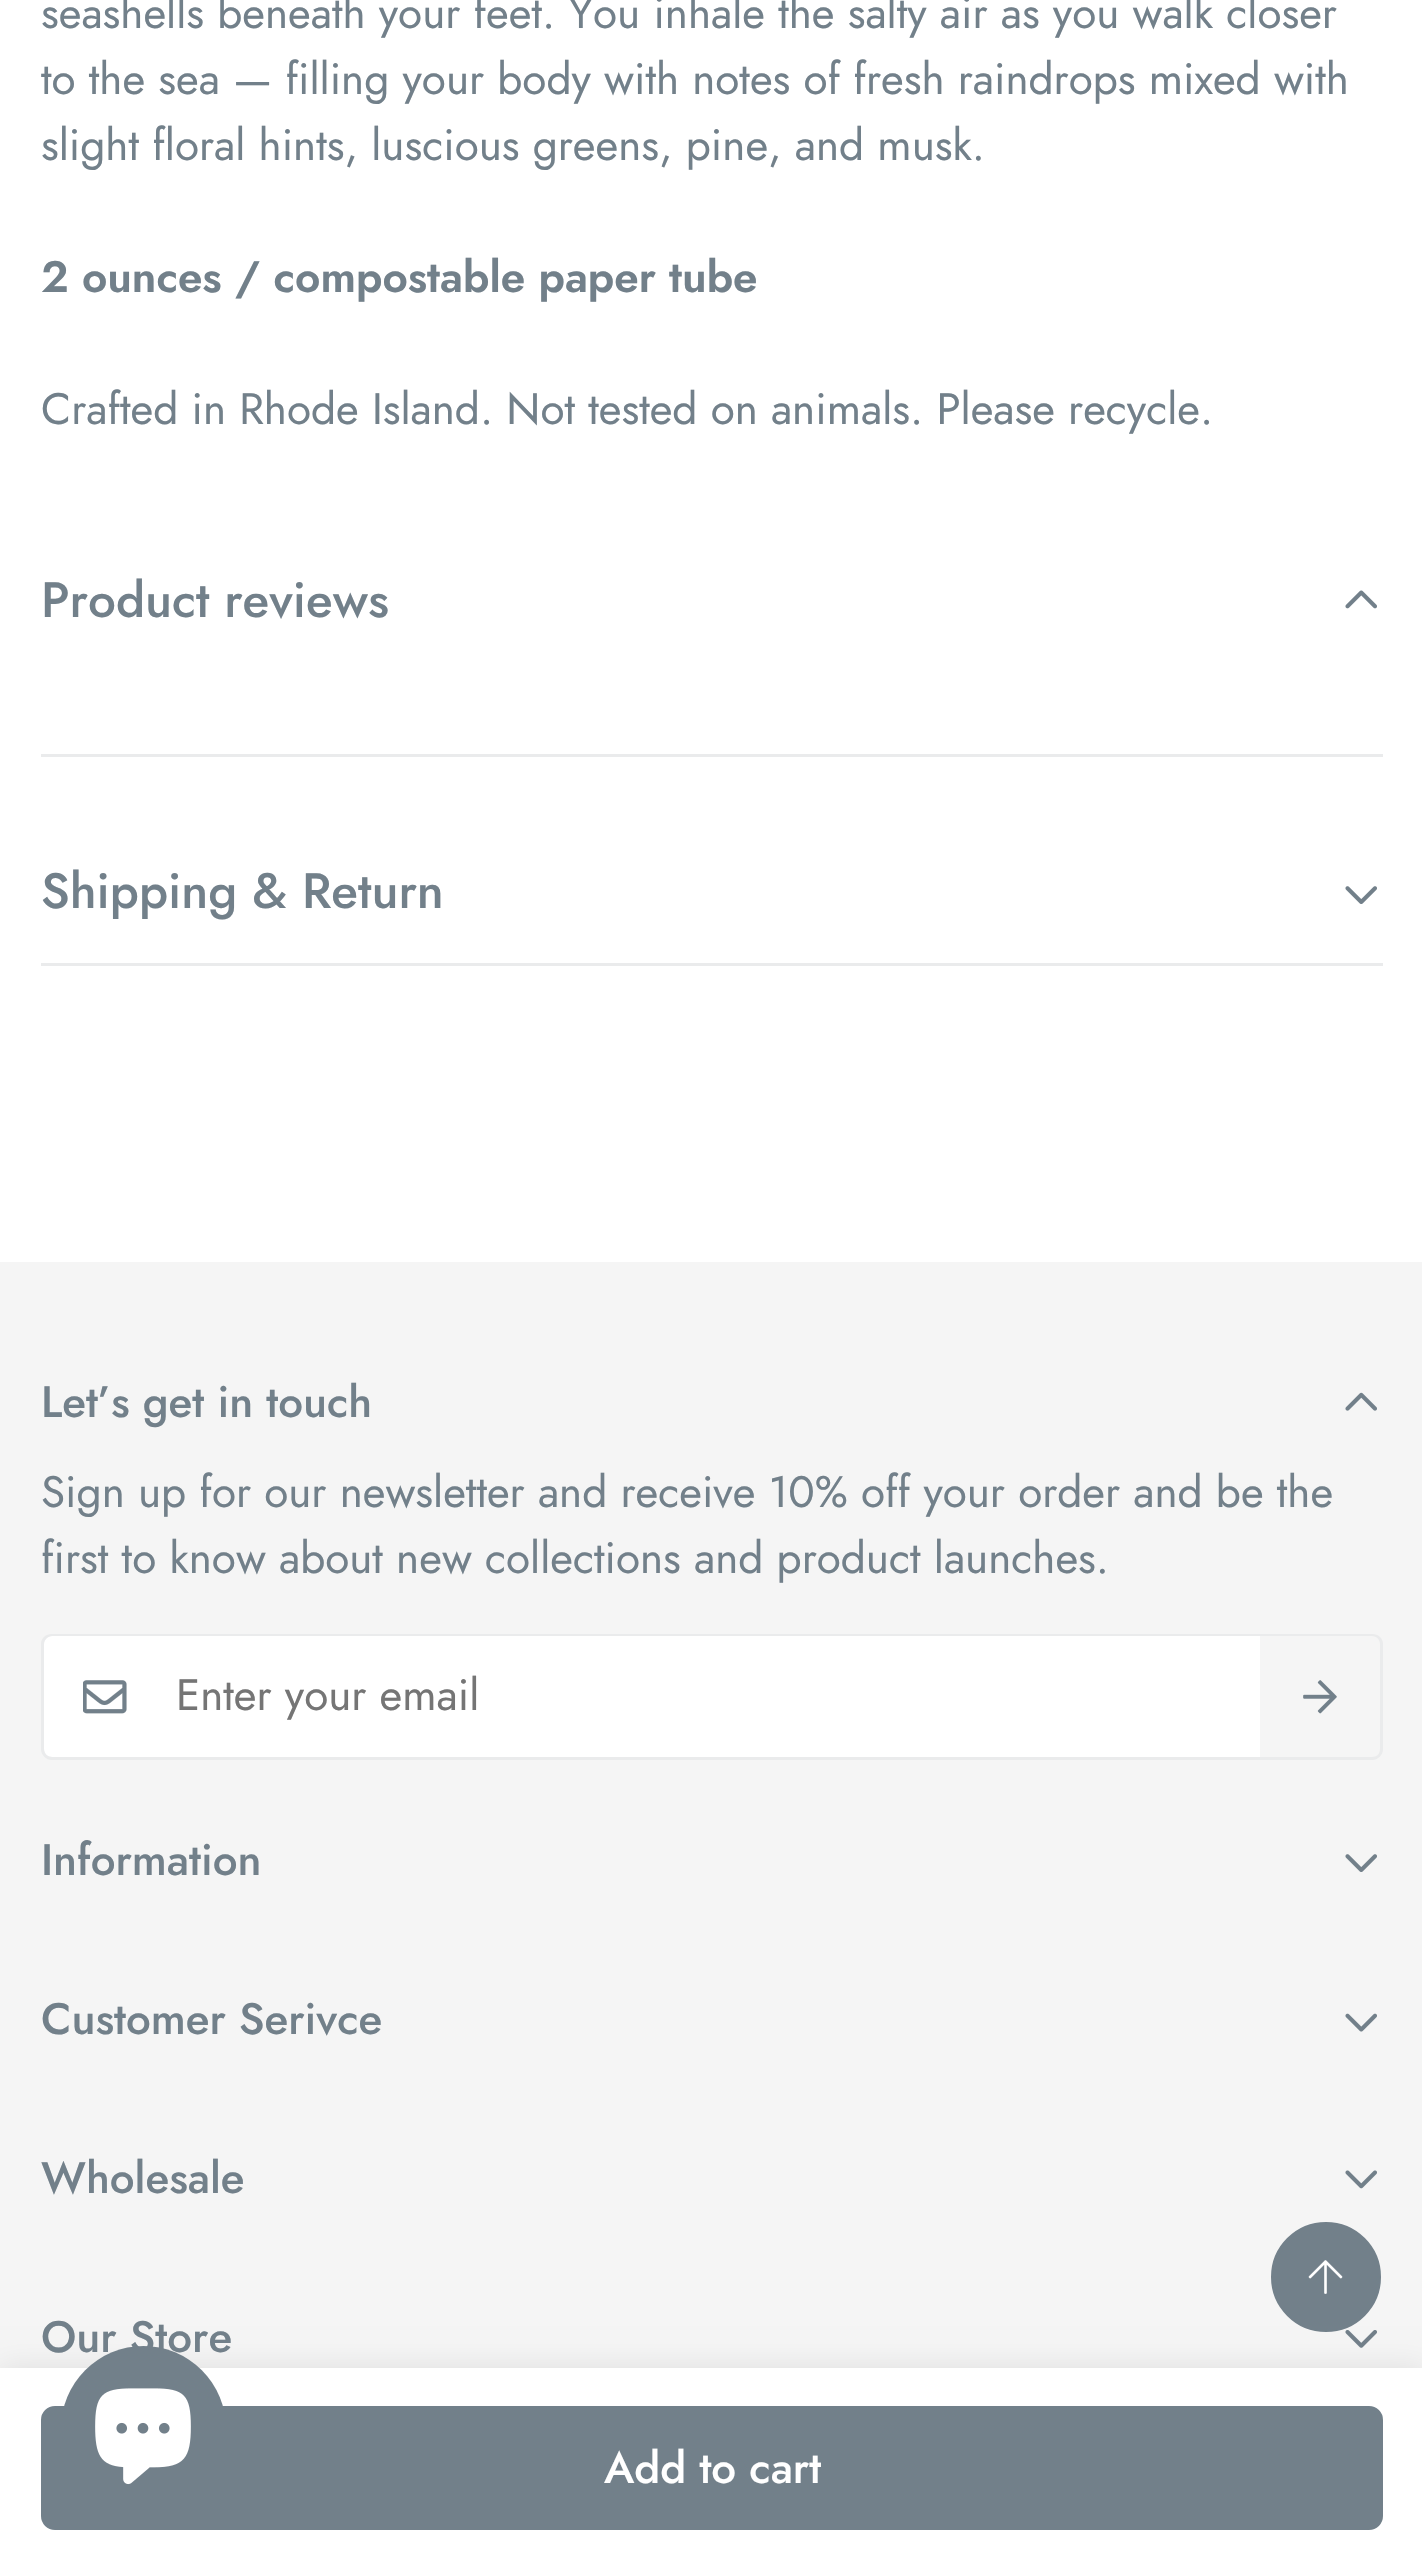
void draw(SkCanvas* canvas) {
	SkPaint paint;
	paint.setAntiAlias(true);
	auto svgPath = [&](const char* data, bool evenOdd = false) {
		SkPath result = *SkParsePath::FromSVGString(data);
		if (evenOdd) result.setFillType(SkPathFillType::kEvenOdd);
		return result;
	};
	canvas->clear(0xffffffff);
	SkFont f1(fontMgr->matchFamilyStyle("Jost", SkFontStyle::Normal()), 44);
	f1.setSubpixel(true);
	paint.setColor(0xff72808a);
	canvas->drawString("seashells beneath your feet. You inhale the salty air as you walk closer", 41, 28, f1, paint);
	canvas->drawString("to the sea — filling your body with notes of fresh raindrops mixed with", 41, 94, f1, paint);
	canvas->drawString("slight floral hints, luscious greens, pine, and musk.", 41, 160, f1, paint);
	SkFont f2(fontMgr->matchFamilyStyle("Jost", SkFontStyle(600, SkFontStyle::kNormal_Width, SkFontStyle::kUpright_Slant)), 44);
	f2.setSubpixel(true);
	canvas->drawString("2 ounces / compostable paper tube", 41, 292, f2, paint);
	canvas->drawString("Crafted in Rhode Island. Not tested on animals. Please recycle.", 41, 424, f1, paint);
	paint.setColor(0xfff5f5f5);
	canvas->drawRect(SkRect::MakeXYWH(0, 1262, 1422, 1106), paint);
	canvas->drawImageRect(SkImages::DeferredFromEncodedData(SkData::MakeFromFileName("img9.png")), SkRect::MakeXYWH(1345, 2330, 32, 18), SkSamplingOptions());
	paint.setColor(0x17000000);
	paint.setMaskFilter(SkMaskFilter::MakeBlur(kNormal_SkBlurStyle, 14));
	canvas->drawRect(SkRect::MakeXYWH(0, 2368, 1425, 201), paint);
	paint.setMaskFilter(nullptr);
	paint.setColor(0xffffffff);
	canvas->drawRect(SkRect::MakeXYWH(0, 2368, 1422, 200), paint);
	paint.setColor(0xff72808a);
	canvas->drawRoundRect(SkRect::MakeXYWH(42.5, 2407.5, 1339, 121), 12.5, 12.5, paint);
	paint.setStroke(true);
	paint.setStrokeWidth(3);
	canvas->drawRoundRect(SkRect::MakeXYWH(42.5, 2407.5, 1339, 121), 12.5, 12.5, paint);
	SkFont f3(fontMgr->matchFamilyStyle("Jost", SkFontStyle(500, SkFontStyle::kNormal_Width, SkFontStyle::kUpright_Slant)), 44);
	f3.setSubpixel(true);
	paint.setStroke(false);
	paint.setColor(0xffffffff);
	canvas->drawString("Add to cart", 604, 2483, f3, paint);
	paint.setColor(0xffeaebec);
	canvas->drawRect(SkRect::MakeXYWH(41, 754, 1342, 3), paint);
	SkFont f4(fontMgr->matchFamilyStyle("Jost", SkFontStyle(500, SkFontStyle::kNormal_Width, SkFontStyle::kUpright_Slant)), 49.5);
	f4.setSubpixel(true);
	paint.setColor(0xff72808a);
	canvas->drawString("Product reviews", 41, 617, f4, paint);
	canvas->drawImageRect(SkImages::DeferredFromEncodedData(SkData::MakeFromFileName("img1.png")), SkRect::MakeXYWH(1345, 590, 32, 19), SkSamplingOptions());
	paint.setColor(0xffeaebec);
	canvas->drawRect(SkRect::MakeXYWH(41, 963, 1342, 3), paint);
	paint.setColor(0xff72808a);
	canvas->drawString("Shipping & Return", 41, 908, f4, paint);
	canvas->drawImageRect(SkImages::DeferredFromEncodedData(SkData::MakeFromFileName("img2.png")), SkRect::MakeXYWH(1345, 886, 32, 18), SkSamplingOptions());
	canvas->drawString("Let’s get in touch", 41, 1417, f3, paint);
	canvas->drawImageRect(SkImages::DeferredFromEncodedData(SkData::MakeFromFileName("img3.png")), SkRect::MakeXYWH(1345, 1392, 32, 19), SkSamplingOptions());
	canvas->drawString("Sign up for our newsletter and receive 10% off your order and be the", 41, 1507, f1, paint);
	canvas->drawString("first to know about new collections and product launches.", 41, 1573, f1, paint);
	paint.setColor(0xffffffff);
	canvas->drawPath(svgPath("M52 1636H1260V1757H52C47.5 1757 44 1753.5 44 1749V1644C44 1639.5 47.5 1636 52 1636Z"), paint);
	paint.setColor(0xffeaebec);
	canvas->drawPath(svgPath("M52 1634H1260V1760H52C46 1760 41 1755 41 1749V1644C41 1638 46 1634 52 1634ZM52 1636H1260V1757H52C48 1757 44 1754 44 1749V1644C44 1640 48 1636 52 1636Z", true), paint);
	canvas->drawImageRect(SkImages::DeferredFromEncodedData(SkData::MakeFromFileName("img4.png")), SkRect::MakeXYWH(83, 1680, 44, 34), SkSamplingOptions());
	paint.setColor(0xff757575);
	canvas->drawString("Enter your email", 176, 1710, f1, paint);
	paint.setColor(0xffeaebec);
	canvas->drawPath(svgPath("M1260 1634H1372C1378 1634 1383 1638 1383 1644V1749C1383 1755 1378 1760 1372 1760H1260ZM1260 1636H1372C1377 1636 1380 1640 1380 1644V1749C1380 1754 1377 1757 1372 1757H1260Z", true), paint);
	canvas->drawImageRect(SkImages::DeferredFromEncodedData(SkData::MakeFromFileName("img5.png")), SkRect::MakeXYWH(1303, 1680, 34, 34), SkSamplingOptions());
	paint.setColor(0xff72808a);
	canvas->drawString("Information", 41, 1875, f3, paint);
	canvas->drawImageRect(SkImages::DeferredFromEncodedData(SkData::MakeFromFileName("img6.png")), SkRect::MakeXYWH(1345, 1854, 32, 18), SkSamplingOptions());
	canvas->drawString("Customer Serivce", 41, 2034, f3, paint);
	canvas->drawImageRect(SkImages::DeferredFromEncodedData(SkData::MakeFromFileName("img7.png")), SkRect::MakeXYWH(1345, 2013, 32, 19), SkSamplingOptions());
	canvas->drawString("Wholesale", 41, 2193, f3, paint);
	canvas->drawImageRect(SkImages::DeferredFromEncodedData(SkData::MakeFromFileName("img8.png")), SkRect::MakeXYWH(1345, 2170, 32, 19), SkSamplingOptions());
	canvas->drawString("Our Store", 41, 2352, f3, paint);
	canvas->drawCircle(1326, 2277, 53.5, paint);
	paint.setStroke(true);
	canvas->drawCircle(1326, 2277, 53.5, paint);
	canvas->drawImageRect(SkImages::DeferredFromEncodedData(SkData::MakeFromFileName("img10.png")), SkRect::MakeXYWH(1308, 2260, 35, 34), SkSamplingOptions());
	paint.setStroke(false);
	canvas->drawCircle(143.5, 2428.5, 82.5, paint);
	canvas->drawImageRect(SkImages::DeferredFromEncodedData(SkData::MakeFromFileName("img11.png")), SkRect::MakeXYWH(95, 2388, 96, 97), SkSamplingOptions());
}
